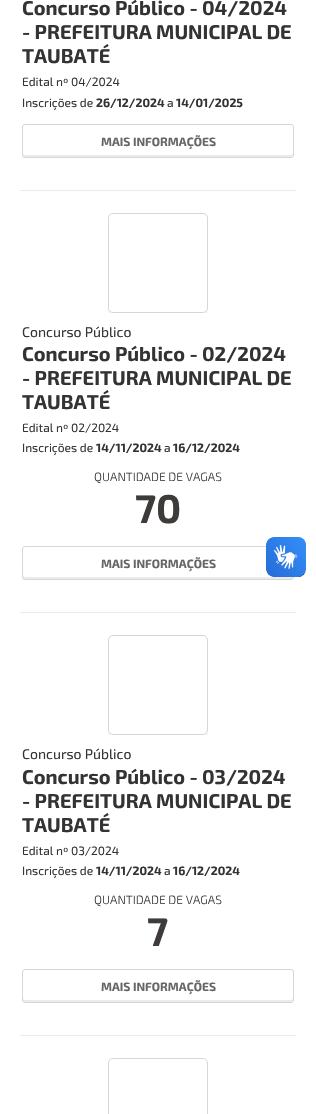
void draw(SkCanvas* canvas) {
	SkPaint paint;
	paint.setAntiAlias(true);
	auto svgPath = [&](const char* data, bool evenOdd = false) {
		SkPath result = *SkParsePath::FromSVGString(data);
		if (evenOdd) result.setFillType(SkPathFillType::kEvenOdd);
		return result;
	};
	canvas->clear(0xffffffff);
	paint.setColor(0xffeaeaea);
	canvas->drawRect(SkRect::MakeXYWH(20, 190, 276, 1), paint);
	SkFont f1(fontMgr->matchFamilyStyle("Exo 2", SkFontStyle::Bold()), 20);
	f1.setSubpixel(true);
	paint.setColor(0xff333333);
	canvas->drawString("Concurso Público - 04/2024", 22, 15, f1, paint);
	canvas->drawString("- PREFEITURA MUNICIPAL DE", 22, 39, f1, paint);
	canvas->drawString("TAUBATÉ", 22, 63, f1, paint);
	SkFont f2(fontMgr->matchFamilyStyle("Exo 2", SkFontStyle::Normal()), 12);
	f2.setSubpixel(true);
	canvas->drawString("Edital nº 04/2024", 22, 86, f2, paint);
	canvas->drawString("Inscrições de", 22, 107, f2, paint);
	SkFont f3(fontMgr->matchFamilyStyle("Exo 2", SkFontStyle::Bold()), 12);
	f3.setSubpixel(true);
	canvas->drawString("26/12/2024", 96, 107, f3, paint);
	canvas->drawString("a", 167, 107, f2, paint);
	canvas->drawString("14/01/2025", 176, 107, f3, paint);
	paint.setColor(0xffebebeb);
	canvas->drawPath(svgPath("M23 153V155C23 156 24 157 25 157H291C292 157 293 156 293 155V153C293 154 292 155 291 155H25C24 155 23 154 23 153Z"), paint);
	paint.setStroke(true);
	paint.setStrokeWidth(1);
	paint.setColor(0xffd6d6d6);
	canvas->drawRoundRect(SkRect::MakeXYWH(22.5, 124.5, 271, 33), 2.5, 2.5, paint);
	paint.setStroke(false);
	paint.setColor(0xff666666);
	canvas->drawString("MAIS INFORMAÇÕES", 101, 146, f3, paint);
	paint.setColor(0xffeaeaea);
	canvas->drawRect(SkRect::MakeXYWH(20, 612, 276, 1), paint);
	canvas->save();
	canvas->clipRect(SkRect::MakeXYWH(22, 213, 272, 100));
	paint.setColor(0xfff5f5f5);
	canvas->drawPath(svgPath("M108 308V311C108 314 110 316 113 316H203C206 316 208 314 208 311V308C208 311 206 313 203 313H113C110 313 108 311 108 308Z"), paint);
	canvas->restore();
	paint.setStroke(true);
	paint.setColor(0xffd6d6d6);
	canvas->drawRoundRect(SkRect::MakeXYWH(108.5, 213.5, 99, 99), 4.5, 4.5, paint);
	SkFont f4(fontMgr->matchFamilyStyle("Exo 2", SkFontStyle::Normal()), 14);
	f4.setSubpixel(true);
	paint.setStroke(false);
	paint.setColor(0xff333333);
	canvas->drawString("Concurso Público", 22, 337, f4, paint);
	canvas->drawString("Concurso Público - 02/2024", 22, 361, f1, paint);
	canvas->drawString("- PREFEITURA MUNICIPAL DE", 22, 385, f1, paint);
	canvas->drawString("TAUBATÉ", 22, 409, f1, paint);
	canvas->drawString("Edital nº 02/2024", 22, 432, f2, paint);
	canvas->drawString("Inscrições de", 22, 452, f2, paint);
	canvas->drawString("14/11/2024", 96, 452, f3, paint);
	canvas->drawString("a", 164, 452, f2, paint);
	canvas->drawString("16/12/2024", 173, 452, f3, paint);
	SkFont f5(fontMgr->matchFamilyStyle("Exo 2", SkFontStyle(300, SkFontStyle::kNormal_Width, SkFontStyle::kUpright_Slant)), 12);
	f5.setSubpixel(true);
	paint.setColor(0xff3f3b3a);
	canvas->drawString("QUANTIDADE DE VAGAS", 94, 481, f5, paint);
	SkFont f6(fontMgr->matchFamilyStyle("Exo 2", SkFontStyle::Bold()), 40);
	f6.setSubpixel(true);
	canvas->drawString("70", 135, 523, f6, paint);
	paint.setColor(0xffebebeb);
	canvas->drawPath(svgPath("M23 575V577C23 578 24 579 25 579H291C292 579 293 578 293 577V575C293 576 292 577 291 577H25C24 577 23 576 23 575Z"), paint);
	paint.setStroke(true);
	paint.setColor(0xffd6d6d6);
	canvas->drawRoundRect(SkRect::MakeXYWH(22.5, 546.5, 271, 33), 2.5, 2.5, paint);
	paint.setStroke(false);
	paint.setColor(0xff666666);
	canvas->drawString("MAIS INFORMAÇÕES", 101, 568, f3, paint);
	paint.setColor(0xffeaeaea);
	canvas->drawRect(SkRect::MakeXYWH(20, 1035, 276, 1), paint);
	canvas->save();
	canvas->clipRect(SkRect::MakeXYWH(22, 635, 272, 100));
	paint.setColor(0xfff5f5f5);
	canvas->drawPath(svgPath("M108 730V733C108 736 110 738 113 738H203C206 738 208 736 208 733V730C208 733 206 735 203 735H113C110 735 108 733 108 730Z"), paint);
	canvas->restore();
	paint.setStroke(true);
	paint.setColor(0xffd6d6d6);
	canvas->drawRoundRect(SkRect::MakeXYWH(108.5, 635.5, 99, 99), 4.5, 4.5, paint);
	paint.setStroke(false);
	paint.setColor(0xff333333);
	canvas->drawString("Concurso Público", 22, 759, f4, paint);
	canvas->drawString("Concurso Público - 03/2024", 22, 784, f1, paint);
	canvas->drawString("- PREFEITURA MUNICIPAL DE", 22, 808, f1, paint);
	canvas->drawString("TAUBATÉ", 22, 832, f1, paint);
	canvas->drawString("Edital nº 03/2024", 22, 855, f2, paint);
	canvas->drawString("Inscrições de", 22, 875, f2, paint);
	canvas->drawString("14/11/2024", 96, 875, f3, paint);
	canvas->drawString("a", 164, 875, f2, paint);
	canvas->drawString("16/12/2024", 173, 875, f3, paint);
	paint.setColor(0xff3f3b3a);
	canvas->drawString("QUANTIDADE DE VAGAS", 94, 904, f5, paint);
	canvas->drawString("7", 147, 946, f6, paint);
	paint.setColor(0xffebebeb);
	canvas->drawPath(svgPath("M23 998V1000C23 1001 24 1002 25 1002H291C292 1002 293 1001 293 1000V998C293 999 292 1000 291 1000H25C24 1000 23 999 23 998Z"), paint);
	paint.setStroke(true);
	paint.setColor(0xffd6d6d6);
	canvas->drawRoundRect(SkRect::MakeXYWH(22.5, 969.5, 271, 33), 2.5, 2.5, paint);
	paint.setStroke(false);
	paint.setColor(0xff666666);
	canvas->drawString("MAIS INFORMAÇÕES", 101, 991, f3, paint);
	paint.setStroke(true);
	paint.setColor(0xffd6d6d6);
	canvas->drawRoundRect(SkRect::MakeXYWH(108.5, 1058.5, 99, 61), 4.5, 4.5, paint);
	canvas->drawImageRect(SkImages::DeferredFromEncodedData(SkData::MakeFromFileName("img1.png")), SkRect::MakeXYWH(266, 537, 40, 40), SkSamplingOptions());
	canvas->drawImageRect(SkImages::DeferredFromEncodedData(SkData::MakeFromFileName("img2.png")), SkRect::MakeXYWH(266, 537, 40, 40), SkSamplingOptions());
}
